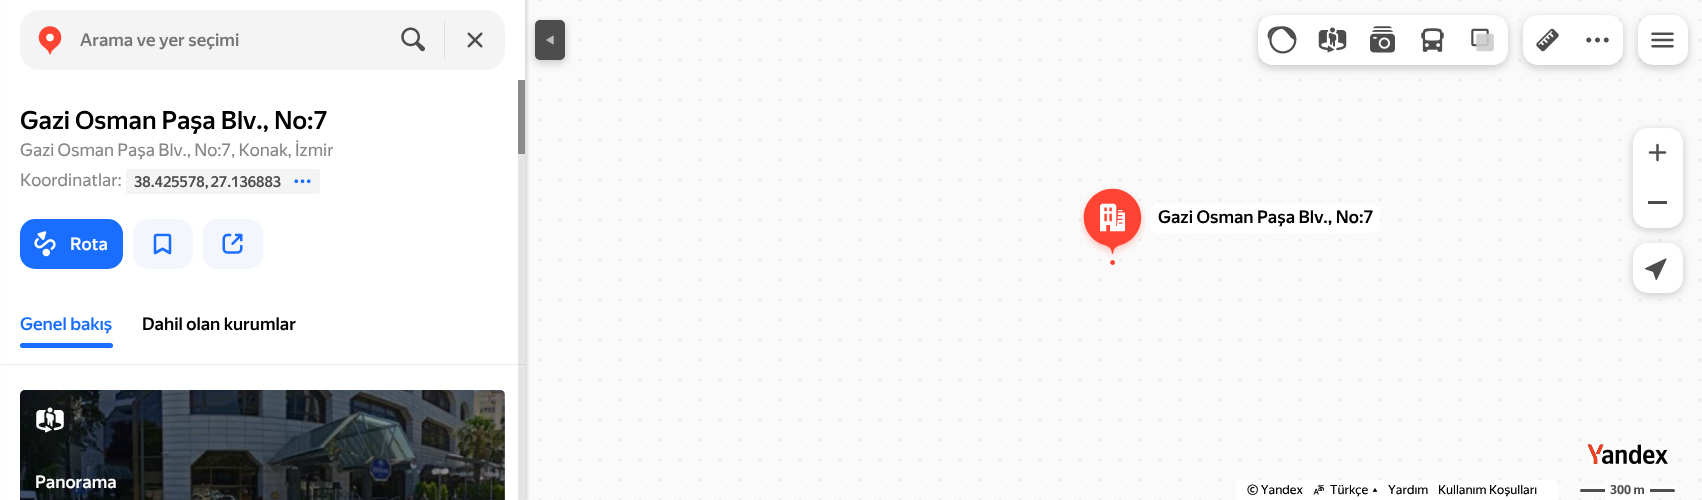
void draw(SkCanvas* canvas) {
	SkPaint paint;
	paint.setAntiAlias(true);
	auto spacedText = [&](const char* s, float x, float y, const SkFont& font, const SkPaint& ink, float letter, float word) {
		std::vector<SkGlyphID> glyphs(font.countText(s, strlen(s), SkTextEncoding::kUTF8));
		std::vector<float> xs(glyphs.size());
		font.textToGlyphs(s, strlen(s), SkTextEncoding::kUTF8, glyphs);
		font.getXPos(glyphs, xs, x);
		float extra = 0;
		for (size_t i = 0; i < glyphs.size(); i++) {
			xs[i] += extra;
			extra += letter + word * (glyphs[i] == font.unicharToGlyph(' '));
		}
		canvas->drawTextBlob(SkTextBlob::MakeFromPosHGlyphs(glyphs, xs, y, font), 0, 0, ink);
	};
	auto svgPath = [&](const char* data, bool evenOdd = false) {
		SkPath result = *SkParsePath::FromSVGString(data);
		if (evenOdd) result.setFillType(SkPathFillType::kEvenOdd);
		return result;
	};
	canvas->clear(0xffffffff);
	canvas->drawImageRect(SkImages::DeferredFromEncodedData(SkData::MakeFromFileName("img1.png")), SkRect::MakeXYWH(525, 0, 1177, 500), SkSamplingOptions());
	paint.setColor(0x1a000000);
	paint.setMaskFilter(SkMaskFilter::MakeBlur(kNormal_SkBlurStyle, 1));
	canvas->drawRect(SkRect::MakeXYWH(3, 0, 525, 500), paint);
	paint.setMaskFilter(nullptr);
	paint.setColor(0x33000000);
	paint.setMaskFilter(SkMaskFilter::MakeBlur(kNormal_SkBlurStyle, 4));
	canvas->drawRoundRect(SkRect::MakeXYWH(535, 23, 30, 40), 5, 5, paint);
	paint.setMaskFilter(nullptr);
	paint.setColor(0xffffffff);
	canvas->drawRect(SkRect::MakeXYWH(2, 0, 523, 500), paint);
	paint.setColor(0xfff4f4f4);
	canvas->drawRoundRect(SkRect::MakeXYWH(20, 10, 485, 60), 20, 20, paint);
	canvas->drawImageRect(SkImages::DeferredFromEncodedData(SkData::MakeFromFileName("img2.png")), SkRect::MakeXYWH(38, 26, 24, 29), SkSamplingOptions());
	SkFont f1(fontMgr->matchFamilyStyle("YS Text", SkFontStyle(500, SkFontStyle::kNormal_Width, SkFontStyle::kUpright_Slant)), 17.5);
	f1.setSubpixel(true);
	paint.setColor(0xff757575);
	canvas->drawString("Arama ve yer seçimi", 80, 46, f1, paint);
	canvas->drawImageRect(SkImages::DeferredFromEncodedData(SkData::MakeFromFileName("img3.png")), SkRect::MakeXYWH(401, 27, 24, 25), SkSamplingOptions());
	paint.setColor(0xffe0e0e0);
	canvas->drawRect(SkRect::MakeXYWH(444, 20, 1, 40), paint);
	canvas->drawImageRect(SkImages::DeferredFromEncodedData(SkData::MakeFromFileName("img4.png")), SkRect::MakeXYWH(467, 32, 16, 16), SkSamplingOptions());
	paint.setColor(0x33000000);
	paint.setMaskFilter(SkMaskFilter::MakeBlur(kNormal_SkBlurStyle, 4));
	canvas->drawRoundRect(SkRect::MakeXYWH(1258, 18, 250, 50), 15, 15, paint);
	paint.setMaskFilter(nullptr);
	paint.setColor(0xffffffff);
	canvas->drawPath(svgPath("M1273 15H1308V65H1273C1264.5 65 1258 58.5 1258 50V30C1258 21.5 1264.5 15 1273 15Z"), paint);
	canvas->drawImageRect(SkImages::DeferredFromEncodedData(SkData::MakeFromFileName("img5.png")), SkRect::MakeXYWH(1267, 26, 30, 28), SkSamplingOptions());
	canvas->drawRect(SkRect::MakeXYWH(1308, 15, 150, 50), paint);
	canvas->drawImageRect(SkImages::DeferredFromEncodedData(SkData::MakeFromFileName("img6.png")), SkRect::MakeXYWH(1318, 27, 29, 26), SkSamplingOptions());
	canvas->drawPath(svgPath("M1458 15H1493C1501.5 15 1508 21.5 1508 30V50C1508 58.5 1501.5 65 1493 65H1458Z"), paint);
	canvas->drawImageRect(SkImages::DeferredFromEncodedData(SkData::MakeFromFileName("img7.png")), SkRect::MakeXYWH(1471, 28, 23, 24), SkSamplingOptions());
	canvas->drawImageRect(SkImages::DeferredFromEncodedData(SkData::MakeFromFileName("img8.png")), SkRect::MakeXYWH(1370, 26, 25, 27), SkSamplingOptions());
	canvas->drawImageRect(SkImages::DeferredFromEncodedData(SkData::MakeFromFileName("img9.png")), SkRect::MakeXYWH(1421, 28, 23, 24), SkSamplingOptions());
	paint.setColor(0x33000000);
	paint.setMaskFilter(SkMaskFilter::MakeBlur(kNormal_SkBlurStyle, 4));
	canvas->drawRoundRect(SkRect::MakeXYWH(1523, 18, 100, 50), 15, 15, paint);
	paint.setMaskFilter(nullptr);
	paint.setColor(0xffffffff);
	canvas->drawPath(svgPath("M1538 15H1573V65H1538C1529.5 65 1523 58.5 1523 50V30C1523 21.5 1529.5 15 1538 15Z"), paint);
	canvas->drawImageRect(SkImages::DeferredFromEncodedData(SkData::MakeFromFileName("img10.png")), SkRect::MakeXYWH(1536, 28, 23, 24), SkSamplingOptions());
	canvas->drawPath(svgPath("M1573 15H1608C1616.5 15 1623 21.5 1623 30V50C1623 58.5 1616.5 65 1608 65H1573Z"), paint);
	canvas->drawImageRect(SkImages::DeferredFromEncodedData(SkData::MakeFromFileName("img11.png")), SkRect::MakeXYWH(1586, 37, 23, 6), SkSamplingOptions());
	paint.setColor(0x33000000);
	paint.setMaskFilter(SkMaskFilter::MakeBlur(kNormal_SkBlurStyle, 4));
	canvas->drawRoundRect(SkRect::MakeXYWH(1638, 18, 50, 50), 15, 15, paint);
	paint.setMaskFilter(nullptr);
	paint.setColor(0xffffffff);
	canvas->drawRoundRect(SkRect::MakeXYWH(1638, 15, 50, 50), 15, 15, paint);
	canvas->drawImageRect(SkImages::DeferredFromEncodedData(SkData::MakeFromFileName("img12.png")), SkRect::MakeXYWH(1651, 32, 23, 16), SkSamplingOptions());
	paint.setColor(0x33000000);
	paint.setMaskFilter(SkMaskFilter::MakeBlur(kNormal_SkBlurStyle, 4));
	canvas->drawRoundRect(SkRect::MakeXYWH(1633, 130, 50, 100), 15, 15, paint);
	paint.setMaskFilter(nullptr);
	paint.setColor(0xffffffff);
	canvas->drawPath(svgPath("M1648 128H1668C1676.5 128 1683 134.5 1683 143V178H1633V143C1633 134.5 1639.5 128 1648 128Z"), paint);
	canvas->drawImageRect(SkImages::DeferredFromEncodedData(SkData::MakeFromFileName("img13.png")), SkRect::MakeXYWH(1648, 143, 19, 19), SkSamplingOptions());
	canvas->drawPath(svgPath("M1633 178H1683V213C1683 221.5 1676.5 228 1668 228H1648C1639.5 228 1633 221.5 1633 213Z"), paint);
	paint.setColor(0xff4d4d4d);
	canvas->drawRect(SkRect::MakeXYWH(1648, 201, 19, 3), paint);
	paint.setColor(0x33000000);
	paint.setMaskFilter(SkMaskFilter::MakeBlur(kNormal_SkBlurStyle, 4));
	canvas->drawRoundRect(SkRect::MakeXYWH(1633, 245, 50, 50), 15, 15, paint);
	paint.setMaskFilter(nullptr);
	paint.setColor(0xffffffff);
	canvas->drawRoundRect(SkRect::MakeXYWH(1633, 243, 50, 50), 15, 15, paint);
	canvas->drawImageRect(SkImages::DeferredFromEncodedData(SkData::MakeFromFileName("img14.png")), SkRect::MakeXYWH(1645, 258, 22, 22), SkSamplingOptions());
	paint.setColor(0xff4d4d4d);
	canvas->drawRoundRect(SkRect::MakeXYWH(535, 20, 30, 40), 5, 5, paint);
	canvas->drawImageRect(SkImages::DeferredFromEncodedData(SkData::MakeFromFileName("img15.png")), SkRect::MakeXYWH(546, 35, 8, 10), SkSamplingOptions());
	SkFont f2(fontMgr->matchFamilyStyle("YS Text", SkFontStyle(500, SkFontStyle::kNormal_Width, SkFontStyle::kUpright_Slant)), 25);
	f2.setSubpixel(true);
	paint.setColor(0xff000000);
	canvas->drawString("Gazi Osman Paşa Blv., No:7", 20, 129, f2, paint);
	SkFont f3(fontMgr->matchFamilyStyle("YS Text", SkFontStyle::Normal()), 17.5);
	f3.setSubpixel(true);
	paint.setColor(0xff878787);
	spacedText("Gazi Osman Paşa Blv., No:7, Konak, İzmir", 20, 156, f3, paint, 0, -0.25);
	canvas->drawString("Koordinatlar:", 20, 186, f3, paint);
	paint.setColor(0xfff4f4f4);
	canvas->drawRoundRect(SkRect::MakeXYWH(126, 169, 194, 25), 2.5, 2.5, paint);
	SkFont f4(fontMgr->matchFamilyStyle("YS Text", SkFontStyle(500, SkFontStyle::kNormal_Width, SkFontStyle::kUpright_Slant)), 15);
	f4.setSubpixel(true);
	paint.setColor(0xff4d4d4d);
	spacedText("38.425578, 27.136883", 134, 187, f4, paint, 0, -1);
	canvas->drawImageRect(SkImages::DeferredFromEncodedData(SkData::MakeFromFileName("img16.png")), SkRect::MakeXYWH(294, 179, 17, 5), SkSamplingOptions());
	paint.setColor(0xff196dff);
	canvas->drawRoundRect(SkRect::MakeXYWH(20, 219, 103, 50), 15, 15, paint);
	canvas->drawImageRect(SkImages::DeferredFromEncodedData(SkData::MakeFromFileName("img17.png")), SkRect::MakeXYWH(34, 231, 22, 26), SkSamplingOptions());
	paint.setColor(0xffffffff);
	canvas->drawString("Rota", 70, 250, f1, paint);
	paint.setColor(0xfff3f6fc);
	canvas->drawRoundRect(SkRect::MakeXYWH(133, 219, 60, 50), 15, 15, paint);
	canvas->drawImageRect(SkImages::DeferredFromEncodedData(SkData::MakeFromFileName("img18.png")), SkRect::MakeXYWH(153, 233, 19, 22), SkSamplingOptions());
	canvas->drawRoundRect(SkRect::MakeXYWH(203, 219, 60, 50), 15, 15, paint);
	canvas->drawImageRect(SkImages::DeferredFromEncodedData(SkData::MakeFromFileName("img19.png")), SkRect::MakeXYWH(222, 233, 21, 21), SkSamplingOptions());
	paint.setColor(0xff196dff);
	canvas->drawString("Genel bakış", 20, 330, f1, paint);
	paint.setColor(0xff000000);
	canvas->drawString("Dahil olan kurumlar", 142, 330, f1, paint);
	paint.setColor(0xff196dff);
	canvas->drawRoundRect(SkRect::MakeXYWH(20, 343, 93, 5), 2.5, 2.5, paint);
	paint.setColor(0xffebebeb);
	canvas->drawRect(SkRect::MakeXYWH(0, 364, 525, 1), paint);
	canvas->drawImageRect(SkImages::DeferredFromEncodedData(SkData::MakeFromFileName("img20.png")), SkRect::MakeXYWH(20, 390, 485, 110), SkSamplingOptions());
	paint.setColor(0x4d000000);
	canvas->drawPath(svgPath("M25 390H500C503 390 505 392 505 395V500H20V395C20 392 22 390 25 390Z"), paint);
	canvas->drawImageRect(SkImages::DeferredFromEncodedData(SkData::MakeFromFileName("img21.png")), SkRect::MakeXYWH(36, 407, 28, 26), SkSamplingOptions());
	paint.setColor(0xffffffff);
	canvas->drawString("Panorama", 35, 488, f1, paint);
	paint.setColor(0xff8a8a8a);
	canvas->drawRect(SkRect::MakeXYWH(518, 80, 7, 74), paint);
	paint.setColor(0x1a000000);
	canvas->drawRect(SkRect::MakeXYWH(518, 154, 7, 346), paint);
	canvas->drawImageRect(SkImages::DeferredFromEncodedData(SkData::MakeFromFileName("img22.png")), SkRect::MakeXYWH(1587, 444, 81, 20), SkSamplingOptions());
	paint.setColor(0xffffffff);
	canvas->drawPath(svgPath("M1241 480H1553C1556 480 1558 482 1558 485V500H1236V485C1236 482 1238 480 1241 480Z"), paint);
	SkFont f5(fontMgr->matchFamilyStyle("YS Text", SkFontStyle::Normal()), 12.5);
	f5.setSubpixel(true);
	paint.setColor(0xff000000);
	canvas->drawString("© Yandex", 1247, 494, f5, paint);
	canvas->drawImageRect(SkImages::DeferredFromEncodedData(SkData::MakeFromFileName("img23.png")), SkRect::MakeXYWH(1313, 484, 11, 11), SkSamplingOptions());
	canvas->drawString("Türkçe", 1330, 494, f5, paint);
	canvas->drawImageRect(SkImages::DeferredFromEncodedData(SkData::MakeFromFileName("img24.png")), SkRect::MakeXYWH(1373, 488, 5, 4), SkSamplingOptions());
	canvas->drawString("Yardım", 1388, 494, f5, paint);
	canvas->drawString("Kullanım Koşulları", 1438, 494, f5, paint);
	paint.setColor(0xfffdfdfd);
	canvas->drawRoundRect(SkRect::MakeXYWH(1578, 486, 100, 8), 4, 4, paint);
	paint.setColor(0xff4d4d4d);
	canvas->drawRoundRect(SkRect::MakeXYWH(1580, 489, 95, 3), 1.5, 1.5, paint);
	paint.setColor(0xffffffff);
	canvas->drawPath(svgPath("M1610 480H1645C1648 480 1650 482 1650 485V500H1605V485C1605 482 1607 480 1610 480Z"), paint);
	SkFont f6(fontMgr->matchFamilyStyle("YS Text", SkFontStyle::Bold()), 12.5);
	f6.setSubpixel(true);
	paint.setColor(0xff4d4d4d);
	canvas->drawString("300 m", 1610, 494, f6, paint);
	canvas->drawImageRect(SkImages::DeferredFromEncodedData(SkData::MakeFromFileName("img25.png")), SkRect::MakeXYWH(1079, 187, 67, 80), SkSamplingOptions());
	canvas->drawImageRect(SkImages::DeferredFromEncodedData(SkData::MakeFromFileName("img26.png")), SkRect::MakeXYWH(1100, 203, 25, 29), SkSamplingOptions());
	paint.setColor(0xe6ffffff);
	canvas->drawRoundRect(SkRect::MakeXYWH(1150, 204, 230, 29), 8, 8, paint);
	paint.setColor(0xff000000);
	canvas->drawString("Gazi Osman Paşa Blv., No:7", 1158, 223, f1, paint);
}
